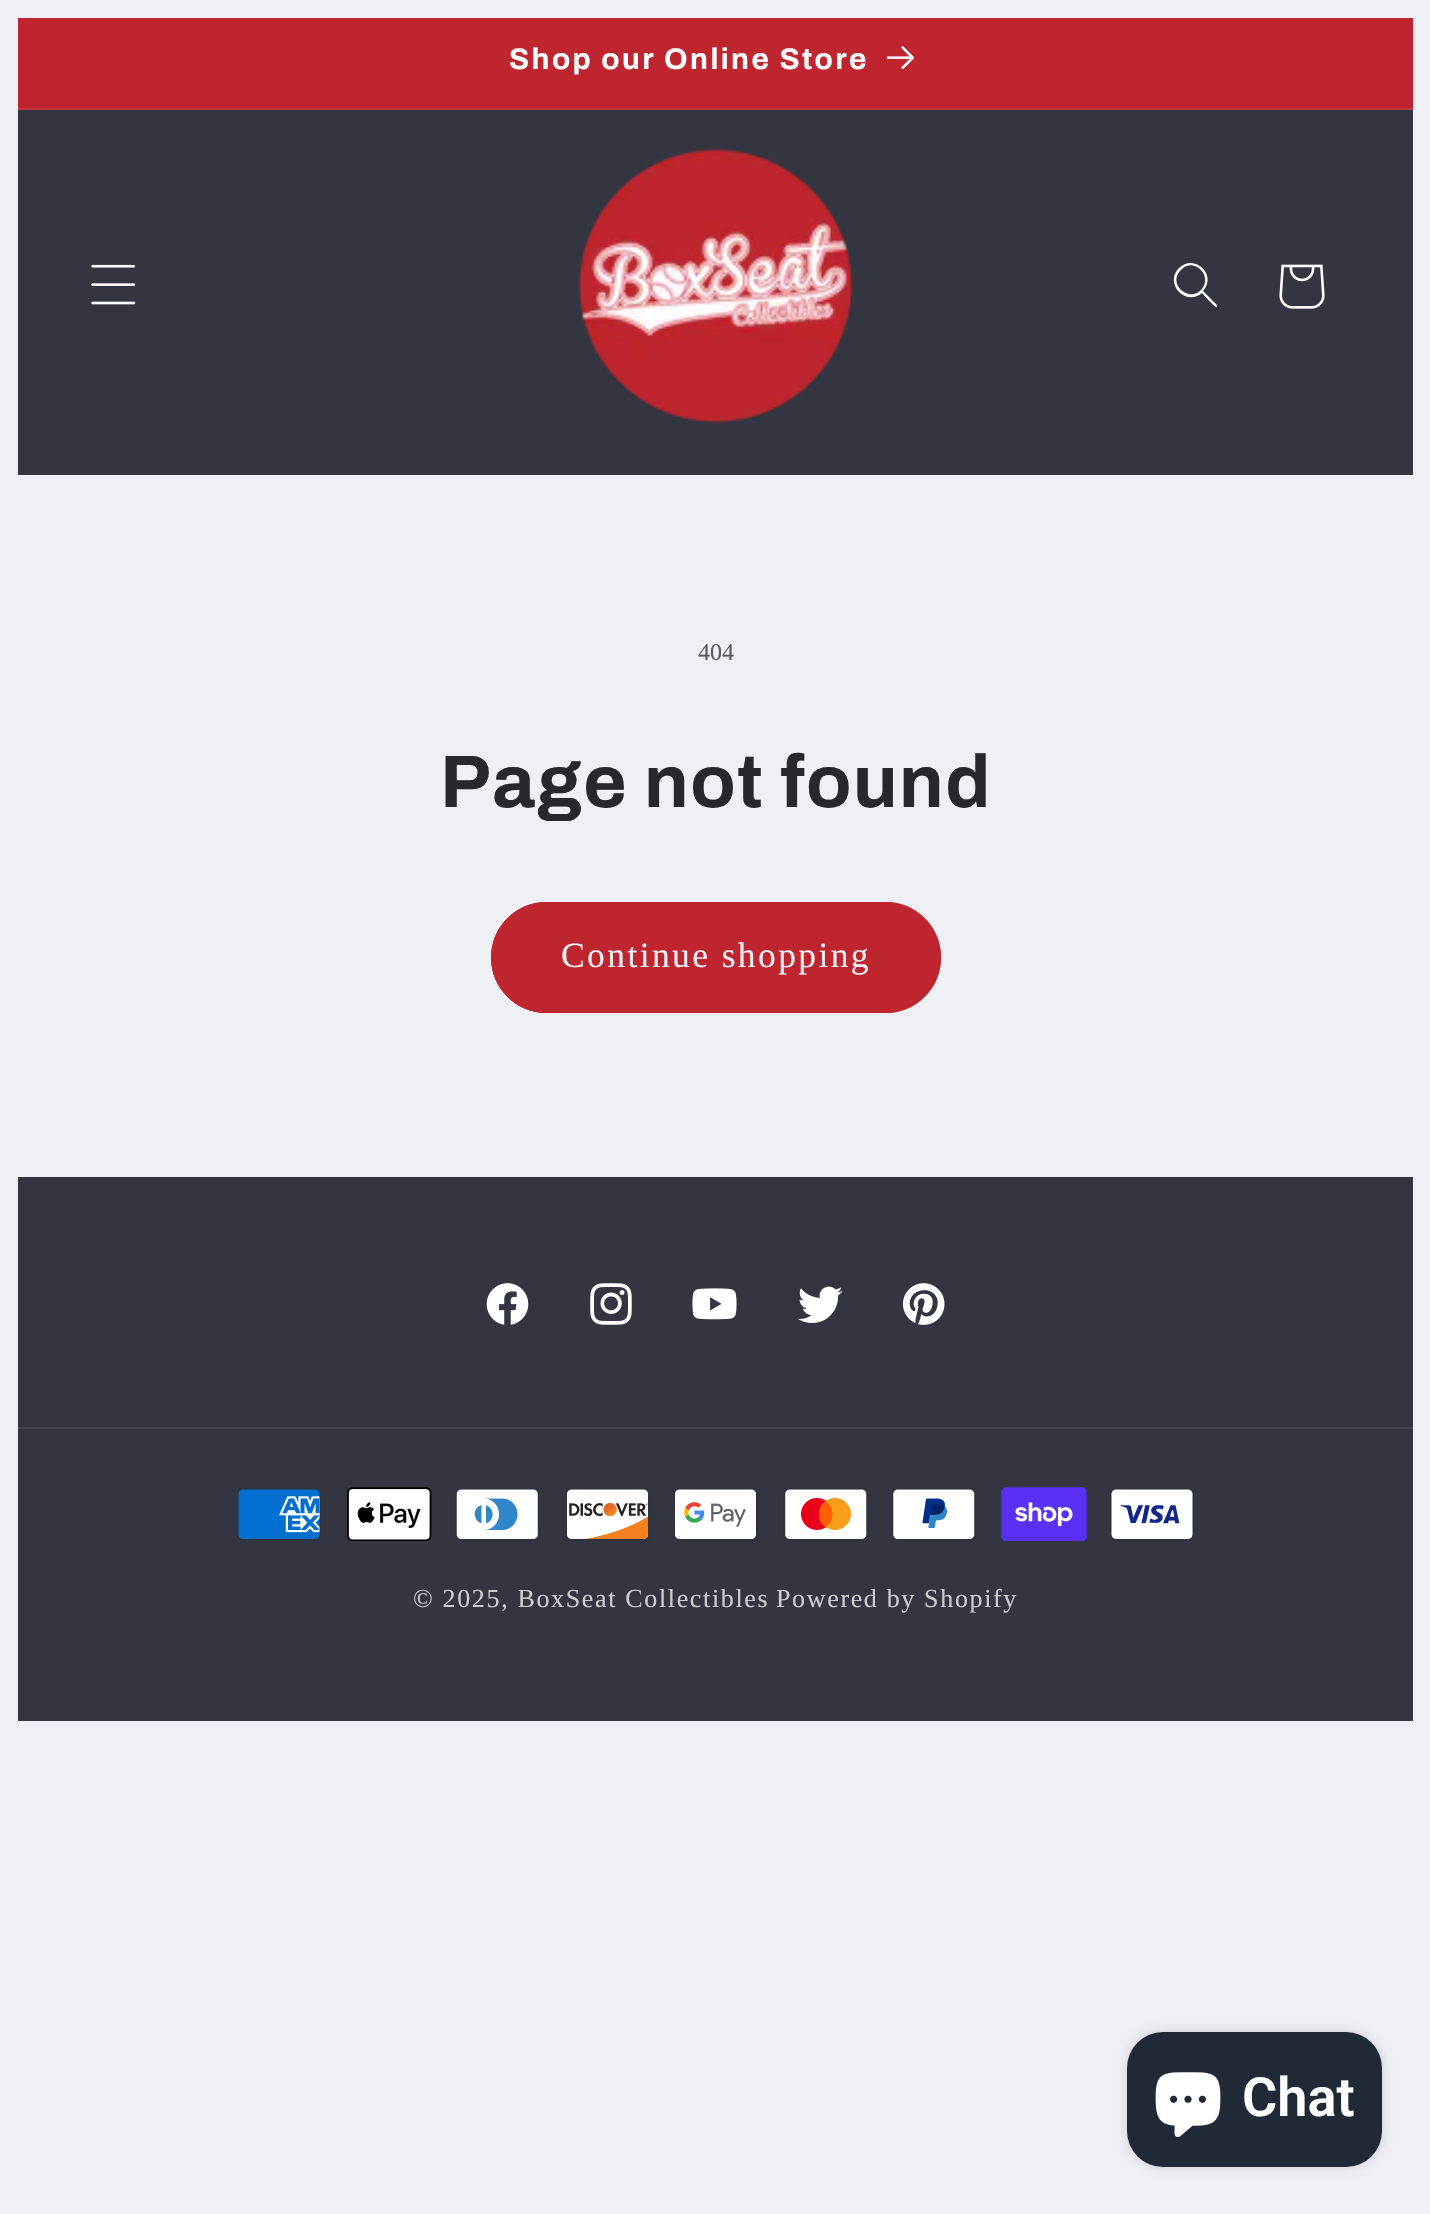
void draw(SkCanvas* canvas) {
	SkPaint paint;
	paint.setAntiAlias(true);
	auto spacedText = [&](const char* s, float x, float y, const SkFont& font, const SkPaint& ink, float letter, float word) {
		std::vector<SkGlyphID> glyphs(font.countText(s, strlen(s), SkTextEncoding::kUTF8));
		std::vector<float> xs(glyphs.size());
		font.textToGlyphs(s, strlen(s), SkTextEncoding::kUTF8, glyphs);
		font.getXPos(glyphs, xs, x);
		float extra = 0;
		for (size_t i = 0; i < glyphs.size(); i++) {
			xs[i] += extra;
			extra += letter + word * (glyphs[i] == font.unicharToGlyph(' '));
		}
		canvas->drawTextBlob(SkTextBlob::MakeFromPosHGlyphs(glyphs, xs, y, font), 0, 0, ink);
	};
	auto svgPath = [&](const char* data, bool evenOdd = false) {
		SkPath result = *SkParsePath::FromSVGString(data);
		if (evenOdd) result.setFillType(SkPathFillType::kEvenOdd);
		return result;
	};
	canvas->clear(0xffeff0f5);
	paint.setColor(0xffbf252e);
	canvas->drawRect(SkRect::MakeXYWH(18, 18, 1395, 90), paint);
	paint.setColor(0xffc4363f);
	canvas->drawRect(SkRect::MakeXYWH(18, 108, 1395, 2), paint);
	SkFont f1(fontMgr->matchFamilyStyle("Archivo", SkFontStyle::Bold()), 29.75);
	f1.setSubpixel(true);
	paint.setColor(0xffffffff);
	spacedText("Shop our Online Store", 509, 69, f1, paint, 2.4, 0);
	canvas->drawImageRect(SkImages::DeferredFromEncodedData(SkData::MakeFromFileName("img1.png")), SkRect::MakeXYWH(887, 46, 27, 23), SkSamplingOptions());
	paint.setColor(0xff333540);
	canvas->drawRect(SkRect::MakeXYWH(18, 110, 1395, 365), paint);
	canvas->drawImageRect(SkImages::DeferredFromEncodedData(SkData::MakeFromFileName("img2.png")), SkRect::MakeXYWH(91, 264, 45, 41), SkSamplingOptions());
	canvas->drawImageRect(SkImages::DeferredFromEncodedData(SkData::MakeFromFileName("img3.png")), SkRect::MakeXYWH(577, 148, 277, 276), SkSamplingOptions());
	paint.setColor(0xffffffff);
	canvas->drawPath(svgPath("M1201 290C1188 303 1167 283 1181 270C1194 256 1214 277 1201 290ZM1202 293C1185 307 1164 283 1179 268C1194 253 1218 275 1203 291L1217 305V307C1215 308 1204 295 1202 293Z", true), paint);
	canvas->drawImageRect(SkImages::DeferredFromEncodedData(SkData::MakeFromFileName("img4.png")), SkRect::MakeXYWH(1279, 264, 46, 45), SkSamplingOptions());
	SkFont f2(fontMgr->matchFamilyStyle("Liberation Serif", SkFontStyle::Normal()), 24);
	f2.setSubpixel(true);
	paint.setColor(0xff595a5f);
	canvas->drawString("404", 698, 660, f2, paint);
	SkFont f3(fontMgr->matchFamilyStyle("Archivo", SkFontStyle::Bold()), 74.25);
	f3.setSubpixel(true);
	paint.setColor(0xff27282d);
	spacedText("Page not found", 440, 807, f3, paint, 1.5, 0);
	paint.setColor(0xffbf252e);
	canvas->drawRoundRect(SkRect::MakeXYWH(491, 902, 450, 111), 55.5, 55.5, paint);
	paint.setStroke(true);
	paint.setStrokeWidth(2);
	canvas->drawRoundRect(SkRect::MakeXYWH(492, 903, 448, 109), 54.5, 54.5, paint);
	SkFont f4(fontMgr->matchFamilyStyle("Liberation Serif", SkFontStyle::Normal()), 35.5);
	f4.setSubpixel(true);
	paint.setStroke(false);
	paint.setColor(0xffeff0f5);
	spacedText("Continue shopping", 561, 967, f4, paint, 2.4, 0);
	paint.setColor(0xff333540);
	canvas->drawRect(SkRect::MakeXYWH(18, 1177, 1395, 544), paint);
	canvas->drawImageRect(SkImages::DeferredFromEncodedData(SkData::MakeFromFileName("img5.png")), SkRect::MakeXYWH(486, 1283, 43, 42), SkSamplingOptions());
	canvas->drawImageRect(SkImages::DeferredFromEncodedData(SkData::MakeFromFileName("img6.png")), SkRect::MakeXYWH(590, 1283, 42, 42), SkSamplingOptions());
	canvas->drawImageRect(SkImages::DeferredFromEncodedData(SkData::MakeFromFileName("img7.png")), SkRect::MakeXYWH(692, 1288, 45, 32), SkSamplingOptions());
	canvas->drawImageRect(SkImages::DeferredFromEncodedData(SkData::MakeFromFileName("img8.png")), SkRect::MakeXYWH(798, 1286, 45, 37), SkSamplingOptions());
	canvas->drawImageRect(SkImages::DeferredFromEncodedData(SkData::MakeFromFileName("img9.png")), SkRect::MakeXYWH(902, 1283, 43, 42), SkSamplingOptions());
	paint.setColor(0xff43454f);
	canvas->drawRect(SkRect::MakeXYWH(18, 1427, 1395, 2), paint);
	canvas->drawImageRect(SkImages::DeferredFromEncodedData(SkData::MakeFromFileName("img10.png")), SkRect::MakeXYWH(237, 1488, 84, 53), SkSamplingOptions());
	canvas->drawImageRect(SkImages::DeferredFromEncodedData(SkData::MakeFromFileName("img11.png")), SkRect::MakeXYWH(347, 1487, 85, 54), SkSamplingOptions());
	canvas->drawImageRect(SkImages::DeferredFromEncodedData(SkData::MakeFromFileName("img12.png")), SkRect::MakeXYWH(455, 1488, 85, 53), SkSamplingOptions());
	canvas->drawImageRect(SkImages::DeferredFromEncodedData(SkData::MakeFromFileName("img13.png")), SkRect::MakeXYWH(565, 1488, 85, 53), SkSamplingOptions());
	canvas->drawImageRect(SkImages::DeferredFromEncodedData(SkData::MakeFromFileName("img14.png")), SkRect::MakeXYWH(673, 1488, 85, 53), SkSamplingOptions());
	canvas->drawImageRect(SkImages::DeferredFromEncodedData(SkData::MakeFromFileName("img15.png")), SkRect::MakeXYWH(783, 1488, 85, 53), SkSamplingOptions());
	canvas->drawImageRect(SkImages::DeferredFromEncodedData(SkData::MakeFromFileName("img16.png")), SkRect::MakeXYWH(891, 1488, 85, 53), SkSamplingOptions());
	canvas->drawImageRect(SkImages::DeferredFromEncodedData(SkData::MakeFromFileName("img17.png")), SkRect::MakeXYWH(1001, 1487, 86, 54), SkSamplingOptions());
	canvas->drawImageRect(SkImages::DeferredFromEncodedData(SkData::MakeFromFileName("img18.png")), SkRect::MakeXYWH(1110, 1488, 84, 53), SkSamplingOptions());
	SkFont f5(fontMgr->matchFamilyStyle("Liberation Serif", SkFontStyle::Normal()), 26);
	f5.setSubpixel(true);
	paint.setColor(0xffcccdcf);
	spacedText("© 2025, BoxSeat Collectibles", 413, 1607, f5, paint, 1.65, 0);
	spacedText("Powered by Shopify", 776, 1607, f5, paint, 1.65, 0);
	paint.setColor(0x26000000);
	paint.setMaskFilter(SkMaskFilter::MakeBlur(kNormal_SkBlurStyle, 5.5));
	canvas->drawRoundRect(SkRect::MakeXYWH(1127, 2032, 255, 135), 36, 36, paint);
	paint.setMaskFilter(nullptr);
	paint.setColor(0xff202a36);
	canvas->drawRoundRect(SkRect::MakeXYWH(1127, 2032, 255, 135), 36, 36, paint);
	canvas->drawImageRect(SkImages::DeferredFromEncodedData(SkData::MakeFromFileName("img19.png")), SkRect::MakeXYWH(1155, 2072, 66, 65), SkSamplingOptions());
	SkFont f6(fontMgr->matchFamilyStyle("Roboto", SkFontStyle(600, SkFontStyle::kNormal_Width, SkFontStyle::kUpright_Slant)), 54);
	f6.setSubpixel(true);
	paint.setColor(0xffffffff);
	canvas->drawString("Chat", 1242, 2116, f6, paint);
}
